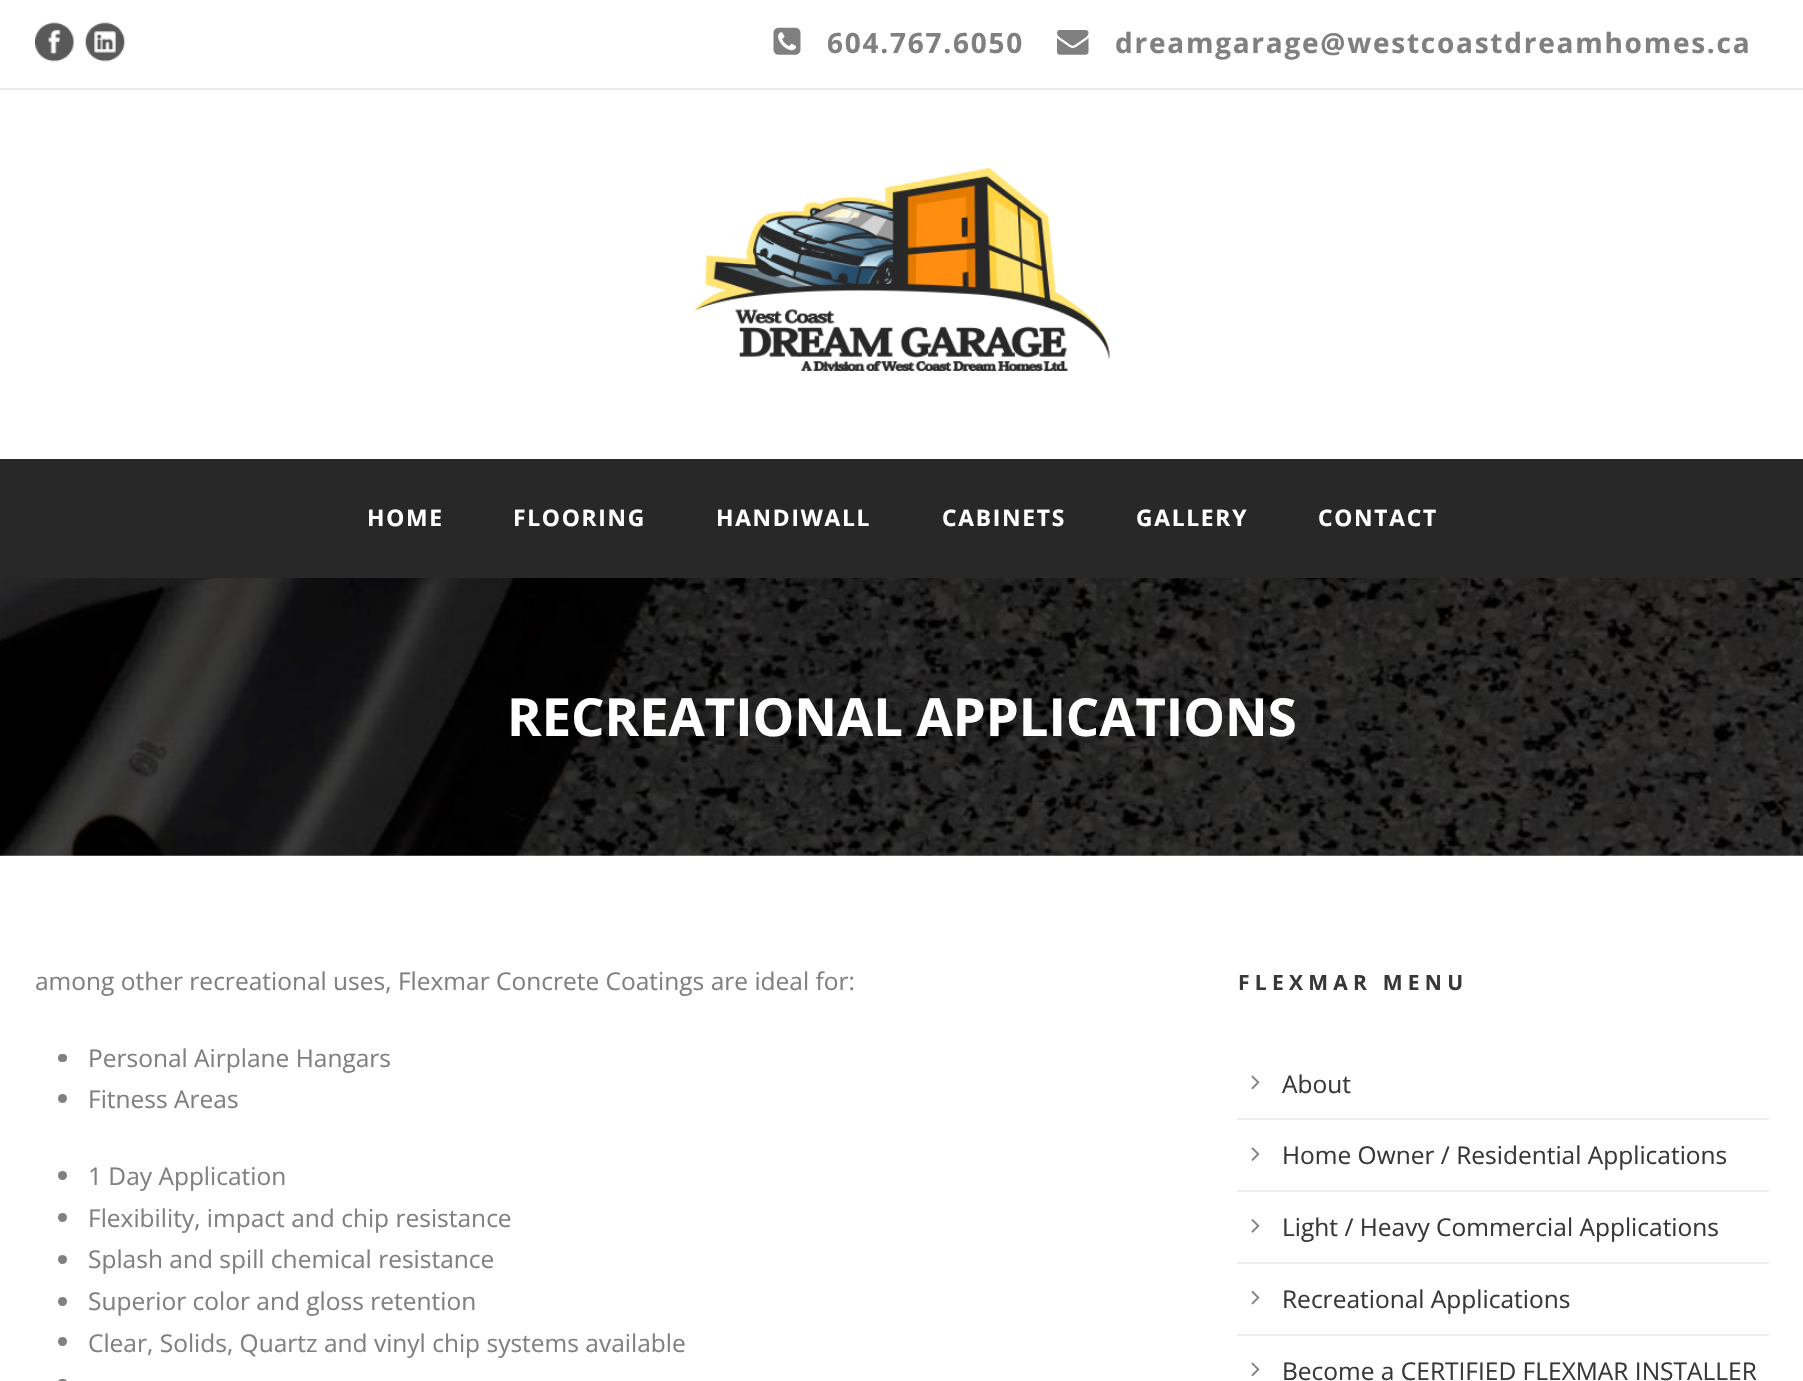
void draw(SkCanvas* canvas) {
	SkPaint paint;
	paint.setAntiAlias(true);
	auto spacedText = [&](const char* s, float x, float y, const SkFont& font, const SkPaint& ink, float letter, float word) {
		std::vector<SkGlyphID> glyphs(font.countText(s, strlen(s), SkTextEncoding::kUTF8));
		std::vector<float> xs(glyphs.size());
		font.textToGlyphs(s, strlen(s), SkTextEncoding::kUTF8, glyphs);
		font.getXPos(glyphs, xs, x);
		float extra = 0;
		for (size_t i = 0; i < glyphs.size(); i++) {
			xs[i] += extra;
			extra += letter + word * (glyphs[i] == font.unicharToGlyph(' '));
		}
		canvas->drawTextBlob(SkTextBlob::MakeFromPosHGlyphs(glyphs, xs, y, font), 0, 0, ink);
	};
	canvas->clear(0xffffffff);
	paint.setColor(0xffebebeb);
	canvas->drawRect(SkRect::MakeXYWH(0, 88, 1803, 2), paint);
	canvas->drawImageRect(SkImages::DeferredFromEncodedData(SkData::MakeFromFileName("img1.png")), SkRect::MakeXYWH(35, 22, 39, 40), SkSamplingOptions());
	canvas->drawImageRect(SkImages::DeferredFromEncodedData(SkData::MakeFromFileName("img2.png")), SkRect::MakeXYWH(85, 22, 40, 40), SkSamplingOptions());
	canvas->drawImageRect(SkImages::DeferredFromEncodedData(SkData::MakeFromFileName("img3.png")), SkRect::MakeXYWH(773, 27, 28, 28), SkSamplingOptions());
	SkFont f1(fontMgr->matchFamilyStyle("Open Sans", SkFontStyle::Bold()), 28);
	f1.setSubpixel(true);
	paint.setColor(0xff808080);
	spacedText("604.767.6050", 827, 53, f1, paint, 1.75, 0);
	canvas->drawImageRect(SkImages::DeferredFromEncodedData(SkData::MakeFromFileName("img4.png")), SkRect::MakeXYWH(1057, 30, 32, 25), SkSamplingOptions());
	spacedText("dreamgarage@westcoastdreamhomes.ca", 1115, 53, f1, paint, 1.75, 0);
	canvas->drawImageRect(SkImages::DeferredFromEncodedData(SkData::MakeFromFileName("img5.png")), SkRect::MakeXYWH(694, 168, 416, 203), SkSamplingOptions());
	paint.setColor(0xff282828);
	canvas->drawRect(SkRect::MakeXYWH(0, 459, 1803, 119), paint);
	SkFont f2(fontMgr->matchFamilyStyle("Open Sans", SkFontStyle::Bold()), 22.75);
	f2.setSubpixel(true);
	paint.setColor(0xffffffff);
	spacedText("HOME", 367, 526, f2, paint, 1.75, 0);
	spacedText("FLOORING", 513, 526, f2, paint, 1.75, 0);
	spacedText("HANDIWALL", 716, 526, f2, paint, 1.75, 0);
	spacedText("CABINETS", 942, 526, f2, paint, 1.75, 0);
	spacedText("GALLERY", 1136, 526, f2, paint, 1.75, 0);
	spacedText("CONTACT", 1318, 526, f2, paint, 1.75, 0);
	canvas->drawImageRect(SkImages::DeferredFromEncodedData(SkData::MakeFromFileName("img6.png")), SkRect::MakeXYWH(0, 578, 1803, 278), SkSamplingOptions());
	SkFont f3(fontMgr->matchFamilyStyle("Open Sans", SkFontStyle::Bold()), 52.5);
	f3.setSubpixel(true);
	canvas->drawString("RECREATIONAL APPLICATIONS", 507, 736, f3, paint);
	SkFont f4(fontMgr->matchFamilyStyle("Open Sans", SkFontStyle::Normal()), 24.5);
	f4.setSubpixel(true);
	paint.setColor(0xff808080);
	canvas->drawString("among other recreational uses, Flexmar Concrete Coatings are ideal for:", 35, 990, f4, paint);
	canvas->drawRoundRect(SkRect::MakeXYWH(58, 1054, 9, 8), 4, 4, paint);
	canvas->drawString("Personal Airplane Hangars", 88, 1067, f4, paint);
	canvas->drawCircle(62.5, 1098.5, 4.5, paint);
	canvas->drawString("Fitness Areas", 88, 1108, f4, paint);
	canvas->drawCircle(62.5, 1175.5, 4.5, paint);
	canvas->drawString("1 Day Application", 88, 1185, f4, paint);
	canvas->drawCircle(62.5, 1217.5, 4.5, paint);
	canvas->drawString("Flexibility, impact and chip resistance", 88, 1227, f4, paint);
	canvas->drawCircle(62.5, 1259.5, 4.5, paint);
	canvas->drawString("Splash and spill chemical resistance", 88, 1268, f4, paint);
	canvas->drawCircle(62.5, 1301.5, 4.5, paint);
	canvas->drawString("Superior color and gloss retention", 88, 1310, f4, paint);
	canvas->drawCircle(62.5, 1341.5, 4.5, paint);
	canvas->drawString("Clear, Solids, Quartz and vinyl chip systems available", 88, 1352, f4, paint);
	canvas->drawRoundRect(SkRect::MakeXYWH(58, 1379, 9, 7), 4.5, 4.5, paint);
	SkFont f5(fontMgr->matchFamilyStyle("Open Sans", SkFontStyle::Bold()), 21);
	f5.setSubpixel(true);
	paint.setColor(0xff383838);
	spacedText("FLEXMAR MENU", 1238, 990, f5, paint, 5.25, 0);
	paint.setColor(0xffeeeeee);
	canvas->drawRect(SkRect::MakeXYWH(1237, 1118, 532, 2), paint);
	canvas->drawImageRect(SkImages::DeferredFromEncodedData(SkData::MakeFromFileName("img7.png")), SkRect::MakeXYWH(1251, 1075, 9, 15), SkSamplingOptions());
	paint.setColor(0xff383838);
	canvas->drawString("About", 1282, 1093, f4, paint);
	paint.setColor(0xffeeeeee);
	canvas->drawRect(SkRect::MakeXYWH(1237, 1190, 532, 2), paint);
	canvas->drawImageRect(SkImages::DeferredFromEncodedData(SkData::MakeFromFileName("img8.png")), SkRect::MakeXYWH(1251, 1147, 9, 14), SkSamplingOptions());
	paint.setColor(0xff383838);
	canvas->drawString("Home Owner / Residential Applications", 1282, 1164, f4, paint);
	paint.setColor(0xffeeeeee);
	canvas->drawRect(SkRect::MakeXYWH(1237, 1262, 532, 2), paint);
	canvas->drawImageRect(SkImages::DeferredFromEncodedData(SkData::MakeFromFileName("img9.png")), SkRect::MakeXYWH(1251, 1219, 9, 14), SkSamplingOptions());
	paint.setColor(0xff383838);
	canvas->drawString("Light / Heavy Commercial Applications", 1282, 1236, f4, paint);
	paint.setColor(0xffeeeeee);
	canvas->drawRect(SkRect::MakeXYWH(1237, 1334, 532, 2), paint);
	canvas->drawImageRect(SkImages::DeferredFromEncodedData(SkData::MakeFromFileName("img10.png")), SkRect::MakeXYWH(1251, 1290, 9, 15), SkSamplingOptions());
	paint.setColor(0xff383838);
	canvas->drawString("Recreational Applications", 1282, 1308, f4, paint);
	canvas->drawImageRect(SkImages::DeferredFromEncodedData(SkData::MakeFromFileName("img7.png")), SkRect::MakeXYWH(1251, 1362, 9, 15), SkSamplingOptions());
	canvas->drawString("Become a CERTIFIED FLEXMAR INSTALLER", 1282, 1380, f4, paint);
}
